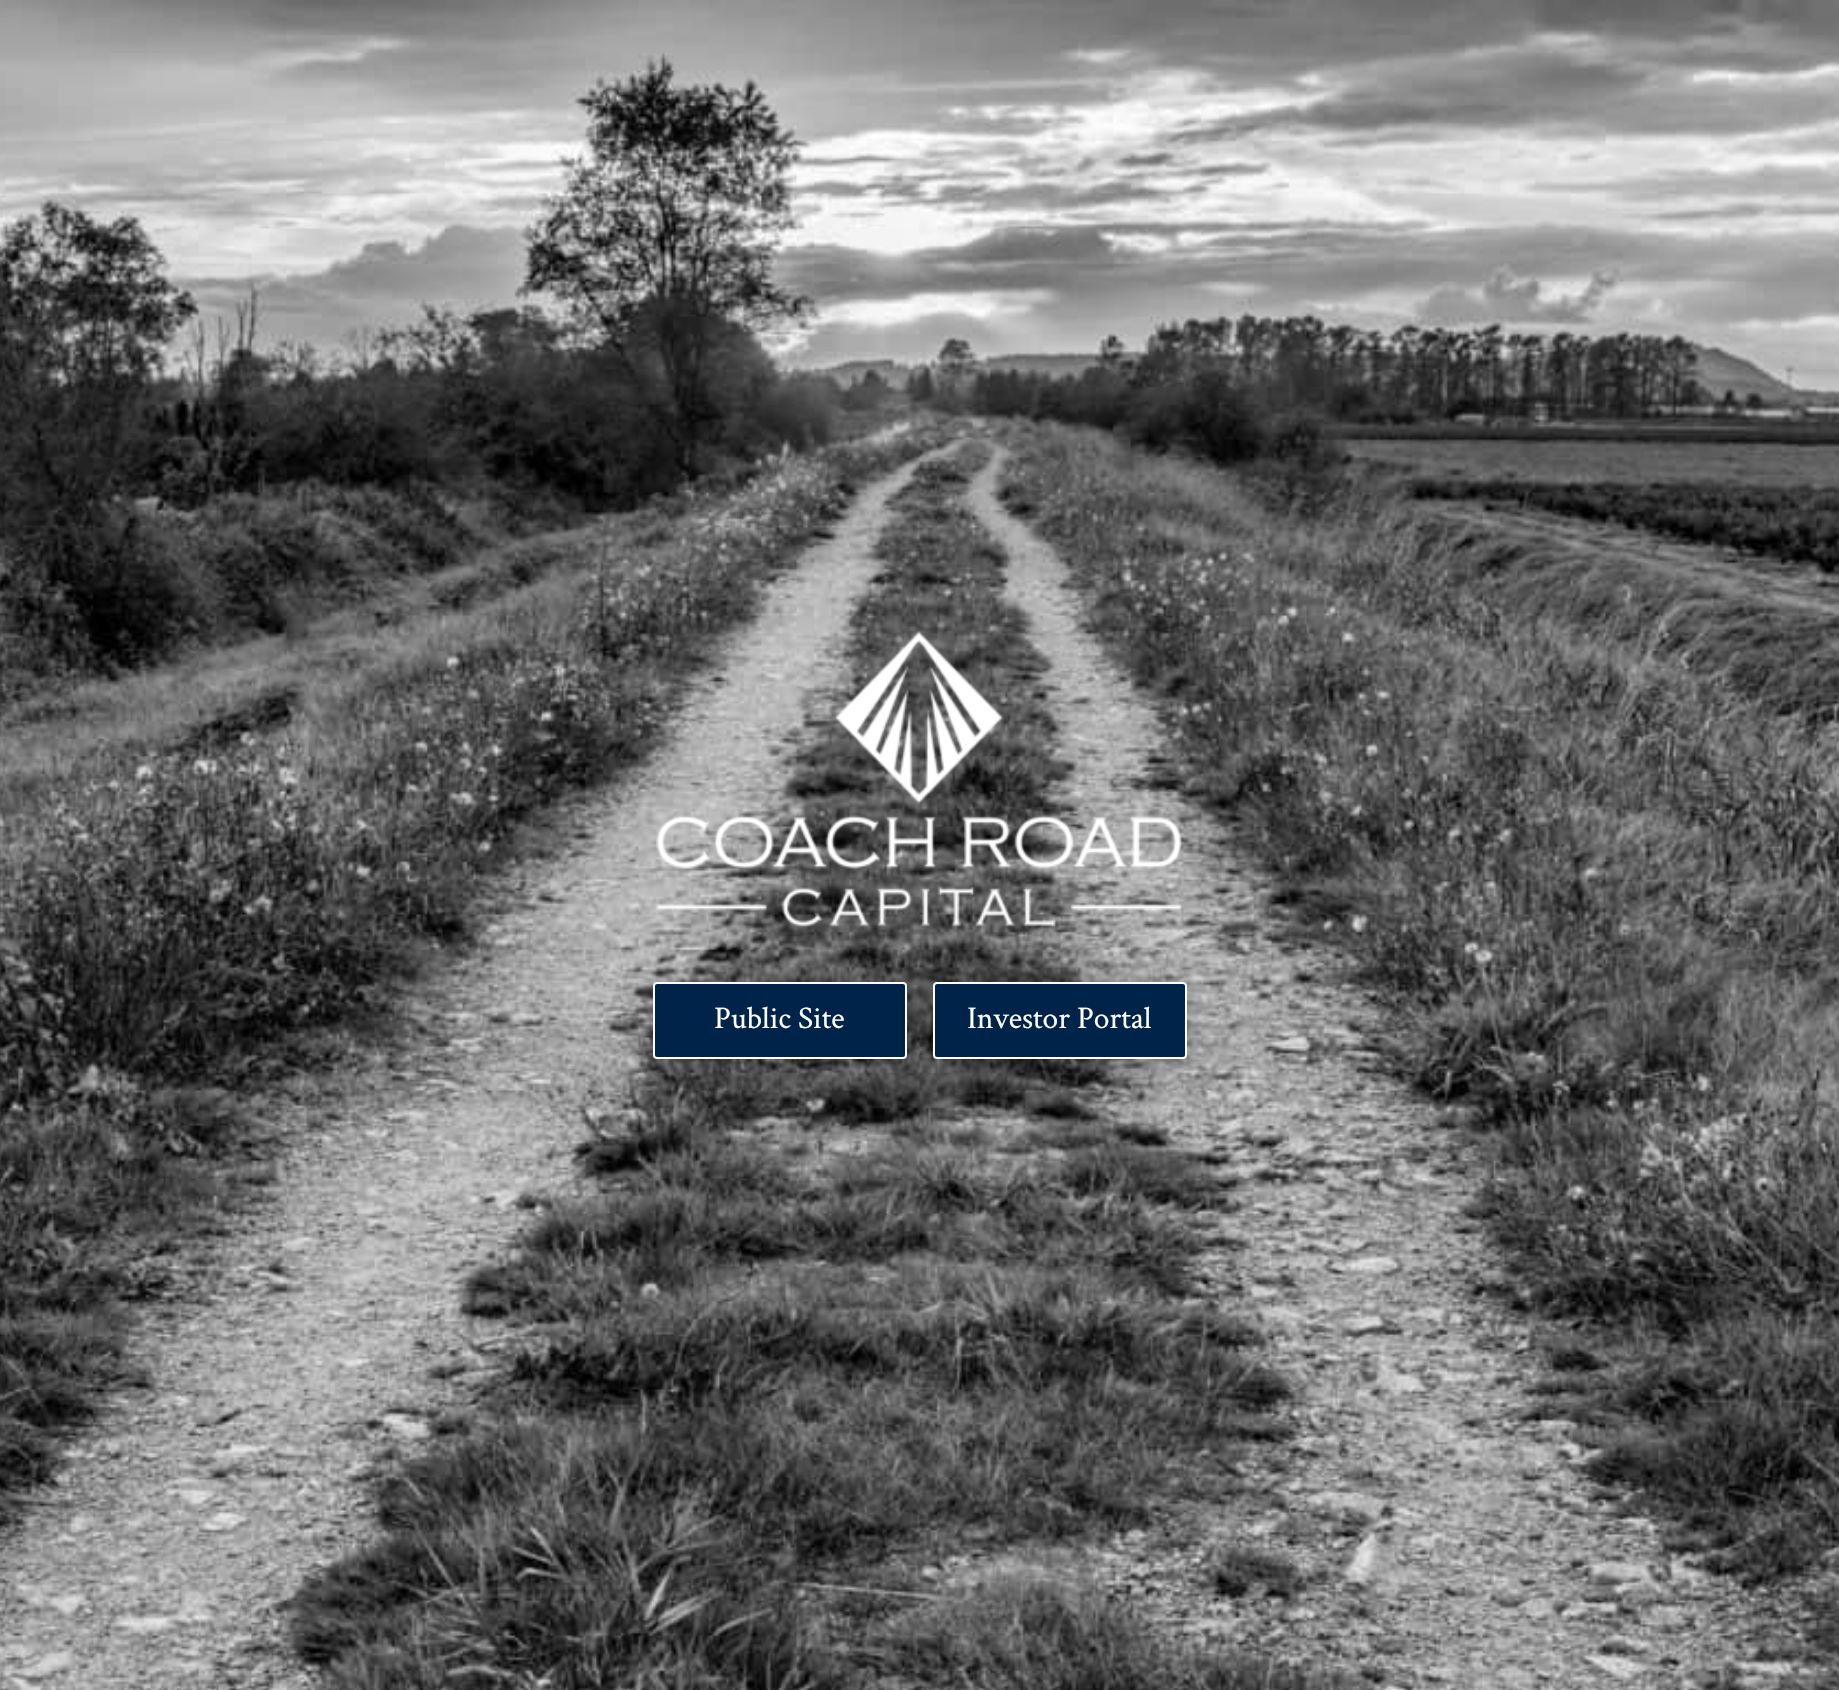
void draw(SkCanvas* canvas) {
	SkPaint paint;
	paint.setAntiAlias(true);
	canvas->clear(0xffffffff);
	canvas->drawImageRect(SkImages::DeferredFromEncodedData(SkData::MakeFromFileName("img1.png")), SkRect::MakeXYWH(0, 0, 1839, 1690), SkSamplingOptions());
	canvas->drawImageRect(SkImages::DeferredFromEncodedData(SkData::MakeFromFileName("img2.png")), SkRect::MakeXYWH(656, 631, 526, 297), SkSamplingOptions());
	paint.setColor(0x4d000000);
	paint.setMaskFilter(SkMaskFilter::MakeBlur(kNormal_SkBlurStyle, 16));
	canvas->drawRoundRect(SkRect::MakeXYWH(653, 985, 254, 77), 4, 4, paint);
	paint.setMaskFilter(nullptr);
	paint.setColor(0xff002449);
	canvas->drawRoundRect(SkRect::MakeXYWH(654, 983, 252, 75), 3, 3, paint);
	paint.setStroke(true);
	paint.setStrokeWidth(2);
	paint.setColor(0xffffffff);
	canvas->drawRoundRect(SkRect::MakeXYWH(654, 983, 252, 75), 3, 3, paint);
	SkFont f1(fontMgr->matchFamilyStyle("Crimson Text", SkFontStyle::Normal()), 31.5);
	f1.setSubpixel(true);
	paint.setStroke(false);
	canvas->drawString("Public Site", 714, 1028, f1, paint);
	paint.setColor(0x4d000000);
	paint.setMaskFilter(SkMaskFilter::MakeBlur(kNormal_SkBlurStyle, 16));
	canvas->drawRoundRect(SkRect::MakeXYWH(933, 985, 254, 77), 4, 4, paint);
	paint.setMaskFilter(nullptr);
	paint.setColor(0xff002449);
	canvas->drawRoundRect(SkRect::MakeXYWH(934, 983, 252, 75), 3, 3, paint);
	paint.setStroke(true);
	paint.setColor(0xffffffff);
	canvas->drawRoundRect(SkRect::MakeXYWH(934, 983, 252, 75), 3, 3, paint);
	paint.setStroke(false);
	canvas->drawString("Investor Portal", 967, 1028, f1, paint);
}
